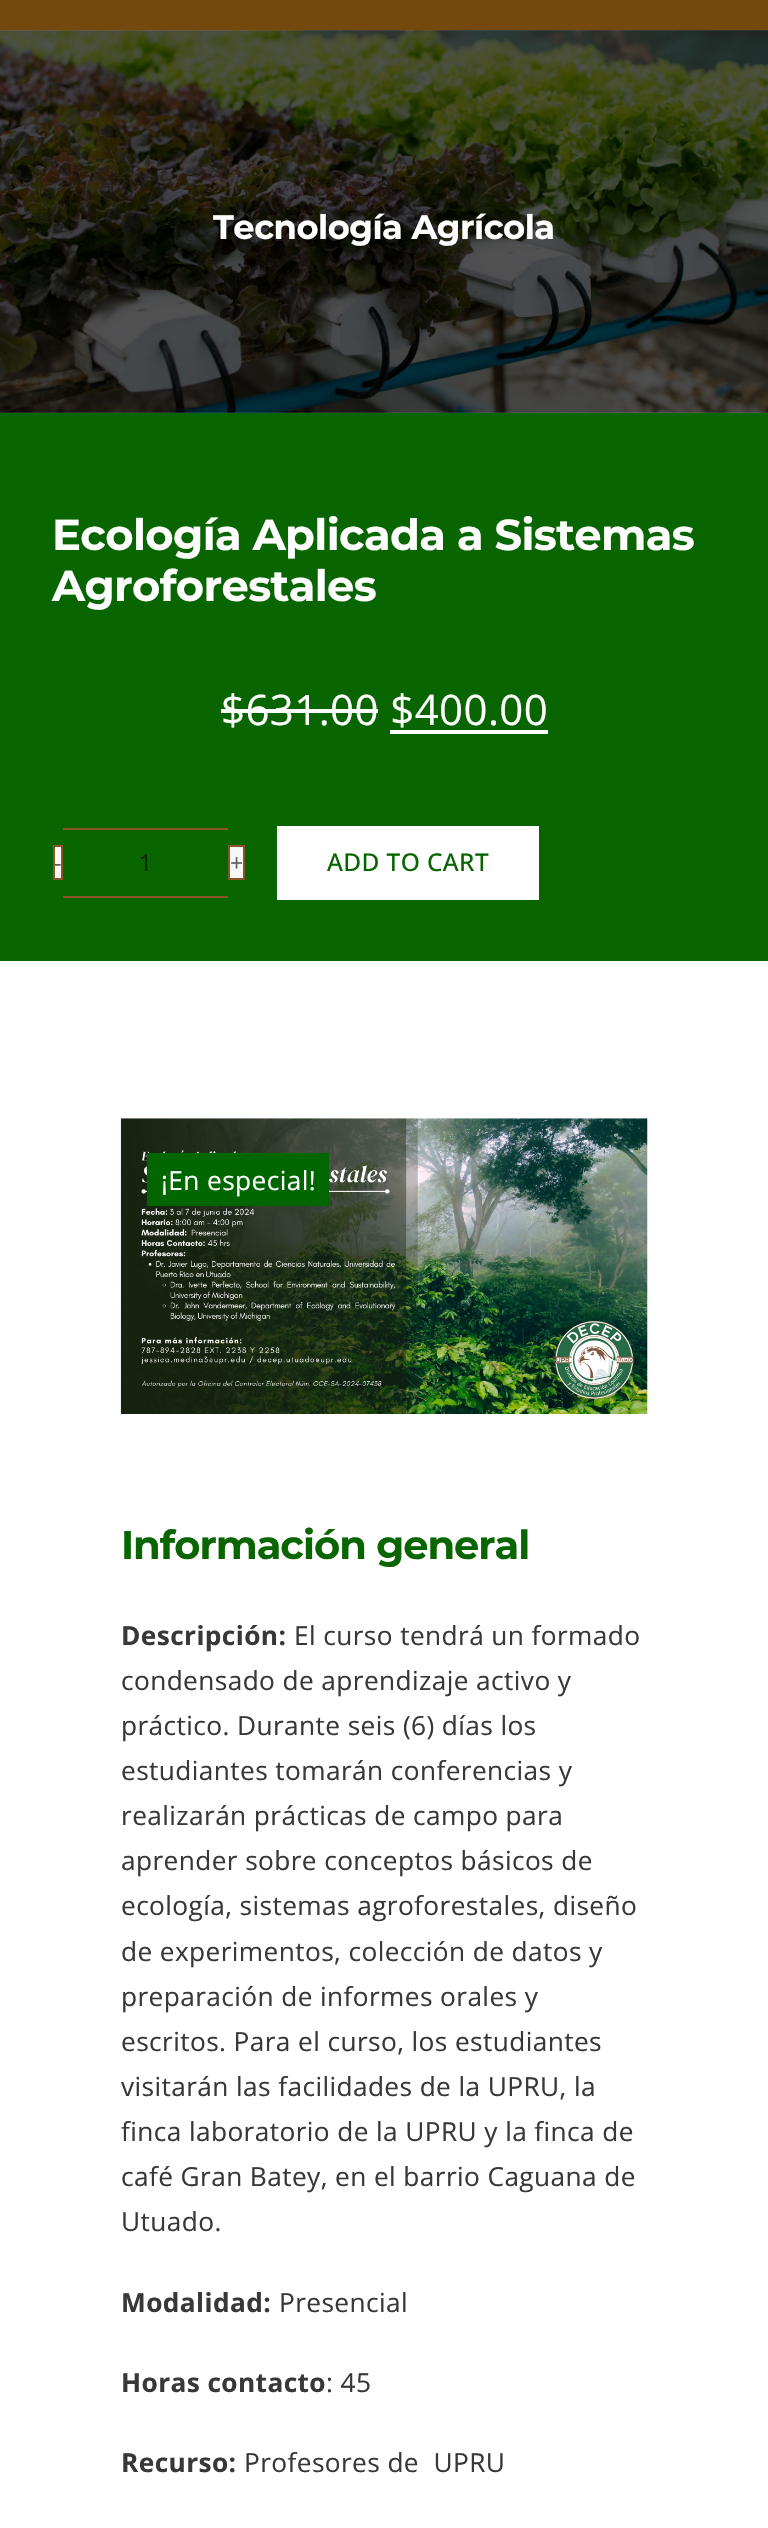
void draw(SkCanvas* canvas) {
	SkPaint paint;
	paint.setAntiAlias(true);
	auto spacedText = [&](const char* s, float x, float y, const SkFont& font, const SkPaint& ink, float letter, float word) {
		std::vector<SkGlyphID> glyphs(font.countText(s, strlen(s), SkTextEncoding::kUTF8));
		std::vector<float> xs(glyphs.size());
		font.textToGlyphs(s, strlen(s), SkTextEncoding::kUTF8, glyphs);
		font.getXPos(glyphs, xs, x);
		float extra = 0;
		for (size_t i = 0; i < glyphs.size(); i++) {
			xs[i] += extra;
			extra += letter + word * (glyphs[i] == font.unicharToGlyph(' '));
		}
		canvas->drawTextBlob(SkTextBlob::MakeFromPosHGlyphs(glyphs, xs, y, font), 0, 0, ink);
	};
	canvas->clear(0xffffffff);
	paint.setColor(0xff75480d);
	canvas->drawRect(SkRect::MakeXYWH(0, 0, 768, 30), paint);
	canvas->drawImageRect(SkImages::DeferredFromEncodedData(SkData::MakeFromFileName("img1.png")), SkRect::MakeXYWH(0, 30, 768, 383), SkSamplingOptions());
	SkFont f1(fontMgr->matchFamilyStyle("Montserrat", SkFontStyle::Bold()), 33.75);
	f1.setSubpixel(true);
	paint.setColor(0xffffffff);
	spacedText("Tecnología Agrícola", 213, 239, f1, paint, -0.5, 0);
	paint.setColor(0xff086500);
	canvas->drawRect(SkRect::MakeXYWH(0, 413, 768, 548), paint);
	SkFont f2(fontMgr->matchFamilyStyle("Montserrat", SkFontStyle::Bold()), 43.25);
	f2.setSubpixel(true);
	paint.setColor(0xffffffff);
	spacedText("Ecología Aplicada a Sistemas", 52, 550, f2, paint, -0.65, 0);
	spacedText("Agroforestales", 52, 601, f2, paint, -0.65, 0);
	SkFont f3(fontMgr->matchFamilyStyle("Open Sans", SkFontStyle::Normal()), 42);
	f3.setSubpixel(true);
	spacedText("$631.00 $400.00", 221, 725, f3, paint, 0.4, 0);
	canvas->drawRect(SkRect::MakeXYWH(221, 709, 157, 4), paint);
	canvas->drawRect(SkRect::MakeXYWH(390, 730, 158, 4), paint);
	paint.setColor(0xfff7f7f7);
	canvas->drawRect(SkRect::MakeXYWH(54, 846, 8, 33), paint);
	paint.setStroke(true);
	paint.setStrokeWidth(2);
	paint.setColor(0xff8b5426);
	canvas->drawRect(SkRect::MakeXYWH(54, 846, 8, 33), paint);
	SkFont f4(fontMgr->matchFamilyStyle("Open Sans", SkFontStyle::Normal()), 23);
	f4.setSubpixel(true);
	paint.setStroke(false);
	paint.setColor(0xff5b5b5b);
	canvas->drawString("-", 54, 871, f4, paint);
	paint.setColor(0xff8b5426);
	canvas->drawRect(SkRect::MakeXYWH(63, 828, 165, 2), paint);
	canvas->drawRect(SkRect::MakeXYWH(63, 896, 165, 2), paint);
	paint.setColor(0xff032500);
	canvas->drawString("1", 139, 871, f4, paint);
	paint.setColor(0xfff7f7f7);
	canvas->drawRect(SkRect::MakeXYWH(229, 846, 15, 33), paint);
	paint.setStroke(true);
	paint.setColor(0xff8b5426);
	canvas->drawRect(SkRect::MakeXYWH(229, 846, 15, 33), paint);
	paint.setStroke(false);
	paint.setColor(0xff5b5b5b);
	canvas->drawString("+", 230, 871, f4, paint);
	paint.setColor(0xffffffff);
	canvas->drawRect(SkRect::MakeXYWH(277, 826, 262, 74), paint);
	SkFont f5(fontMgr->matchFamilyStyle("Open Sans", SkFontStyle(500, SkFontStyle::kNormal_Width, SkFontStyle::kUpright_Slant)), 24.5);
	f5.setSubpixel(true);
	paint.setColor(0xff086500);
	spacedText("ADD TO CART", 327, 871, f5, paint, 0.4, 0);
	canvas->drawImageRect(SkImages::DeferredFromEncodedData(SkData::MakeFromFileName("img2.png")), SkRect::MakeXYWH(120, 1118, 528, 296), SkSamplingOptions());
	paint.setColor(0xff006600);
	canvas->drawRect(SkRect::MakeXYWH(147, 1153, 182, 53), paint);
	SkFont f6(fontMgr->matchFamilyStyle("Open Sans", SkFontStyle::Normal()), 26.25);
	f6.setSubpixel(true);
	paint.setColor(0xffffffff);
	spacedText("¡En especial!", 161, 1190, f6, paint, 0.4, 0);
	SkFont f7(fontMgr->matchFamilyStyle("Montserrat", SkFontStyle::Bold()), 40);
	f7.setSubpixel(true);
	paint.setColor(0xff086500);
	spacedText("Información general", 121, 1559, f7, paint, -1, 0);
	SkFont f8(fontMgr->matchFamilyStyle("Open Sans", SkFontStyle::Bold()), 26.25);
	f8.setSubpixel(true);
	paint.setColor(0xff383838);
	spacedText("Descripción:", 121, 1645, f8, paint, 0.4, 0);
	spacedText("El curso tendrá un formado", 294, 1645, f6, paint, 0.4, 0);
	spacedText("condensado de aprendizaje activo y", 121, 1690, f6, paint, 0.4, 0);
	spacedText("práctico. Durante seis (6) días los", 121, 1735, f6, paint, 0.4, 0);
	spacedText("estudiantes tomarán conferencias y", 121, 1780, f6, paint, 0.4, 0);
	spacedText("realizarán prácticas de campo para", 121, 1825, f6, paint, 0.4, 0);
	spacedText("aprender sobre conceptos básicos de", 121, 1870, f6, paint, 0.4, 0);
	spacedText("ecología, sistemas agroforestales, diseño", 121, 1915, f6, paint, 0.4, 0);
	spacedText("de experimentos, colección de datos y", 121, 1961, f6, paint, 0.4, 0);
	spacedText("preparación de informes orales y", 121, 2006, f6, paint, 0.4, 0);
	spacedText("escritos. Para el curso, los estudiantes", 121, 2051, f6, paint, 0.4, 0);
	spacedText("visitarán las facilidades de la UPRU, la", 121, 2096, f6, paint, 0.4, 0);
	spacedText("finca laboratorio de la UPRU y la finca de", 121, 2141, f6, paint, 0.4, 0);
	spacedText("café Gran Batey, en el barrio Caguana de", 121, 2186, f6, paint, 0.4, 0);
	spacedText("Utuado.", 121, 2231, f6, paint, 0.4, 0);
	spacedText("Modalidad:", 121, 2312, f8, paint, 0.4, 0);
	spacedText("Presencial", 279, 2312, f6, paint, 0.4, 0);
	spacedText("Horas contacto", 121, 2392, f8, paint, 0.4, 0);
	spacedText(": 45", 326, 2392, f6, paint, 0.4, 0);
	spacedText("Recurso:", 121, 2472, f8, paint, 0.4, 0);
	spacedText("Profesores de  UPRU", 244, 2472, f6, paint, 0.4, 0);
}
